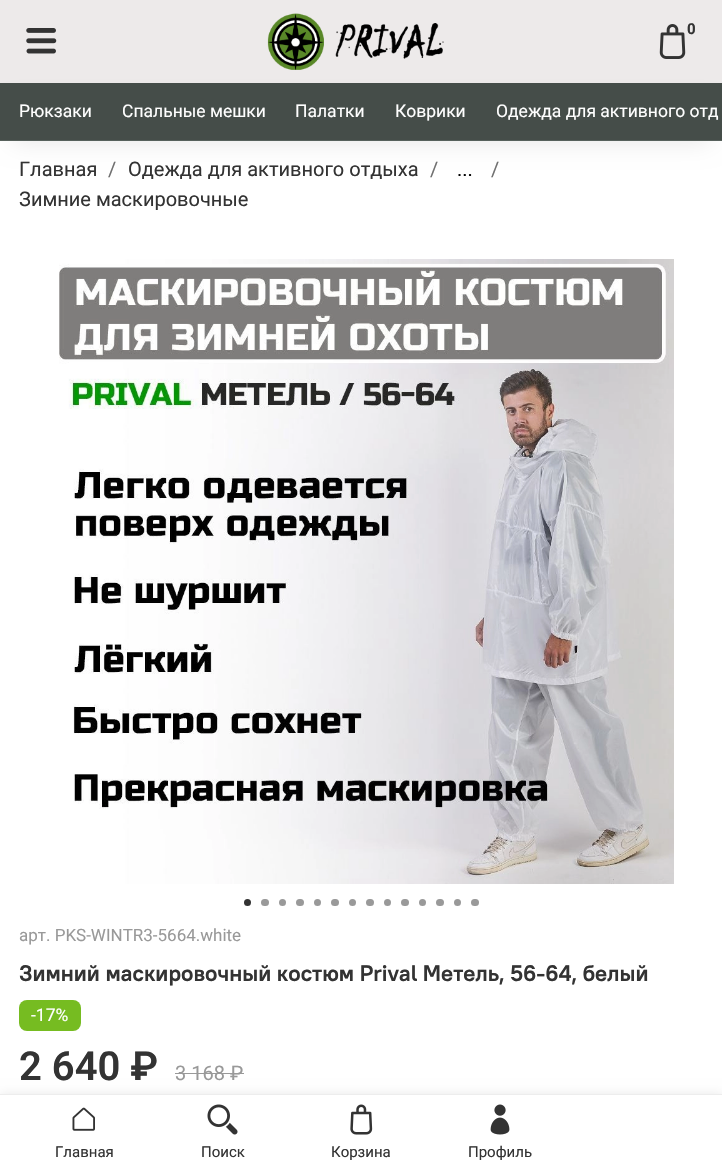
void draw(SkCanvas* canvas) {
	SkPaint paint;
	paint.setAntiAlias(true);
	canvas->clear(0xffffffff);
	paint.setColor(0xffedeaea);
	canvas->drawRect(SkRect::MakeXYWH(0, 0, 722, 83), paint);
	canvas->drawImageRect(SkImages::DeferredFromEncodedData(SkData::MakeFromFileName("img1.png")), SkRect::MakeXYWH(26, 28, 31, 26), SkSamplingOptions());
	canvas->drawImageRect(SkImages::DeferredFromEncodedData(SkData::MakeFromFileName("img2.png")), SkRect::MakeXYWH(267, 13, 177, 57), SkSamplingOptions());
	canvas->drawImageRect(SkImages::DeferredFromEncodedData(SkData::MakeFromFileName("img3.png")), SkRect::MakeXYWH(659, 24, 27, 35), SkSamplingOptions());
	SkFont f1(fontMgr->matchFamilyStyle("Roboto", SkFontStyle::Bold()), 15);
	f1.setSubpixel(true);
	paint.setColor(0xff333333);
	canvas->drawString("0", 687, 34, f1, paint);
	paint.setColor(0x1a000000);
	paint.setMaskFilter(SkMaskFilter::MakeBlur(kNormal_SkBlurStyle, 12.5));
	canvas->drawRect(SkRect::MakeXYWH(13, 108, 697, 33), paint);
	paint.setMaskFilter(nullptr);
	paint.setColor(0xff454d49);
	canvas->drawRect(SkRect::MakeXYWH(0, 83, 722, 57), paint);
	paint.setColor(0xff57615c);
	canvas->drawRect(SkRect::MakeXYWH(0, 140, 722, 1), paint);
	SkFont f2(fontMgr->matchFamilyStyle("Roboto", SkFontStyle::Normal()), 17.5);
	f2.setSubpixel(true);
	paint.setColor(0xffffffff);
	canvas->drawString("Рюкзаки", 19, 117, f2, paint);
	canvas->drawString("Спальные мешки", 122, 117, f2, paint);
	canvas->drawString("Палатки", 295, 117, f2, paint);
	canvas->drawString("Коврики", 395, 117, f2, paint);
	canvas->drawString("Одежда для активного отд", 496, 117, f2, paint);
	SkFont f3(fontMgr->matchFamilyStyle("Roboto", SkFontStyle::Normal()), 20);
	f3.setSubpixel(true);
	paint.setColor(0xff333333);
	canvas->drawString("Главная", 19, 176, f3, paint);
	paint.setColor(0xff707070);
	canvas->drawString("/", 108, 176, f3, paint);
	paint.setColor(0xff333333);
	canvas->drawString("Одежда для активного отдыха", 128, 176, f3, paint);
	paint.setColor(0xff707070);
	canvas->drawString("/", 430, 176, f3, paint);
	paint.setColor(0xff000000);
	canvas->drawString("...", 457, 176, f3, paint);
	paint.setColor(0xff707070);
	canvas->drawString("/", 491, 176, f3, paint);
	paint.setColor(0xff333333);
	canvas->drawString("Зимние маскировочные", 19, 206, f3, paint);
	canvas->drawImageRect(SkImages::DeferredFromEncodedData(SkData::MakeFromFileName("img4.png")), SkRect::MakeXYWH(59, 259, 615, 625), SkSamplingOptions());
	canvas->drawCircle(247.5, 902.5, 3.5, paint);
	paint.setColor(0xff999999);
	canvas->drawRoundRect(SkRect::MakeXYWH(261, 899, 8, 7), 3.5, 3.5, paint);
	canvas->drawCircle(282.5, 902.5, 3.5, paint);
	canvas->drawRoundRect(SkRect::MakeXYWH(296, 899, 8, 7), 3.5, 3.5, paint);
	canvas->drawCircle(317.5, 902.5, 3.5, paint);
	canvas->drawRoundRect(SkRect::MakeXYWH(331, 899, 8, 7), 3.5, 3.5, paint);
	canvas->drawCircle(352.5, 902.5, 3.5, paint);
	canvas->drawRoundRect(SkRect::MakeXYWH(366, 899, 8, 7), 3.5, 3.5, paint);
	canvas->drawCircle(387.5, 902.5, 3.5, paint);
	canvas->drawRoundRect(SkRect::MakeXYWH(401, 899, 8, 7), 3.5, 3.5, paint);
	canvas->drawCircle(422.5, 902.5, 3.5, paint);
	canvas->drawRoundRect(SkRect::MakeXYWH(436, 899, 8, 7), 3.5, 3.5, paint);
	canvas->drawCircle(457.5, 902.5, 3.5, paint);
	canvas->drawRoundRect(SkRect::MakeXYWH(471, 899, 8, 7), 3.5, 3.5, paint);
	SkFont f4(fontMgr->matchFamilyStyle("Roboto", SkFontStyle::Normal()), 17);
	f4.setSubpixel(true);
	canvas->drawString("арт. PKS-WINTR3-5664.white", 19, 941, f4, paint);
	SkFont f5(fontMgr->matchFamilyStyle("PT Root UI", SkFontStyle::Bold()), 22.5);
	f5.setSubpixel(true);
	paint.setColor(0xff333333);
	canvas->drawString("Зимний маскировочный костюм Prival Метель, 56-64, белый", 19, 981, f5, paint);
	paint.setColor(0xff76bc21);
	canvas->drawRoundRect(SkRect::MakeXYWH(19, 1000, 62, 31), 8, 8, paint);
	paint.setColor(0xffffffff);
	canvas->drawString("-17%", 31, 1021, f2, paint);
	SkFont f6(fontMgr->matchFamilyStyle("Roboto", SkFontStyle(600, SkFontStyle::kNormal_Width, SkFontStyle::kUpright_Slant)), 40);
	f6.setSubpixel(true);
	paint.setColor(0xff333333);
	canvas->drawString("2 640 ₽", 19, 1080, f6, paint);
	paint.setColor(0xff999999);
	canvas->drawString("3 168 ₽", 175, 1080, f3, paint);
	canvas->drawRect(SkRect::MakeXYWH(175, 1073, 69, 1), paint);
	paint.setColor(0x1f000000);
	paint.setMaskFilter(SkMaskFilter::MakeBlur(kNormal_SkBlurStyle, 6));
	canvas->drawRect(SkRect::MakeXYWH(0, 1096, 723, 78), paint);
	paint.setMaskFilter(nullptr);
	paint.setColor(0xffffffff);
	canvas->drawRect(SkRect::MakeXYWH(0, 1095, 722, 76), paint);
	paint.setColor(0xffededed);
	canvas->drawRect(SkRect::MakeXYWH(0, 1094, 722, 1), paint);
	canvas->drawImageRect(SkImages::DeferredFromEncodedData(SkData::MakeFromFileName("img5.png")), SkRect::MakeXYWH(72, 1107, 23, 24), SkSamplingOptions());
	SkFont f7(fontMgr->matchFamilyStyle("Roboto", SkFontStyle::Normal()), 15);
	f7.setSubpixel(true);
	paint.setColor(0xff333333);
	canvas->drawString("Главная", 55, 1157, f7, paint);
	canvas->drawImageRect(SkImages::DeferredFromEncodedData(SkData::MakeFromFileName("img6.png")), SkRect::MakeXYWH(207, 1104, 31, 31), SkSamplingOptions());
	canvas->drawString("Поиск", 201, 1157, f7, paint);
	canvas->drawImageRect(SkImages::DeferredFromEncodedData(SkData::MakeFromFileName("img7.png")), SkRect::MakeXYWH(350, 1104, 23, 31), SkSamplingOptions());
	canvas->drawString("Корзина", 331, 1157, f7, paint);
	canvas->drawImageRect(SkImages::DeferredFromEncodedData(SkData::MakeFromFileName("img8.png")), SkRect::MakeXYWH(490, 1104, 20, 31), SkSamplingOptions());
	canvas->drawString("Профиль", 468, 1157, f7, paint);
}
